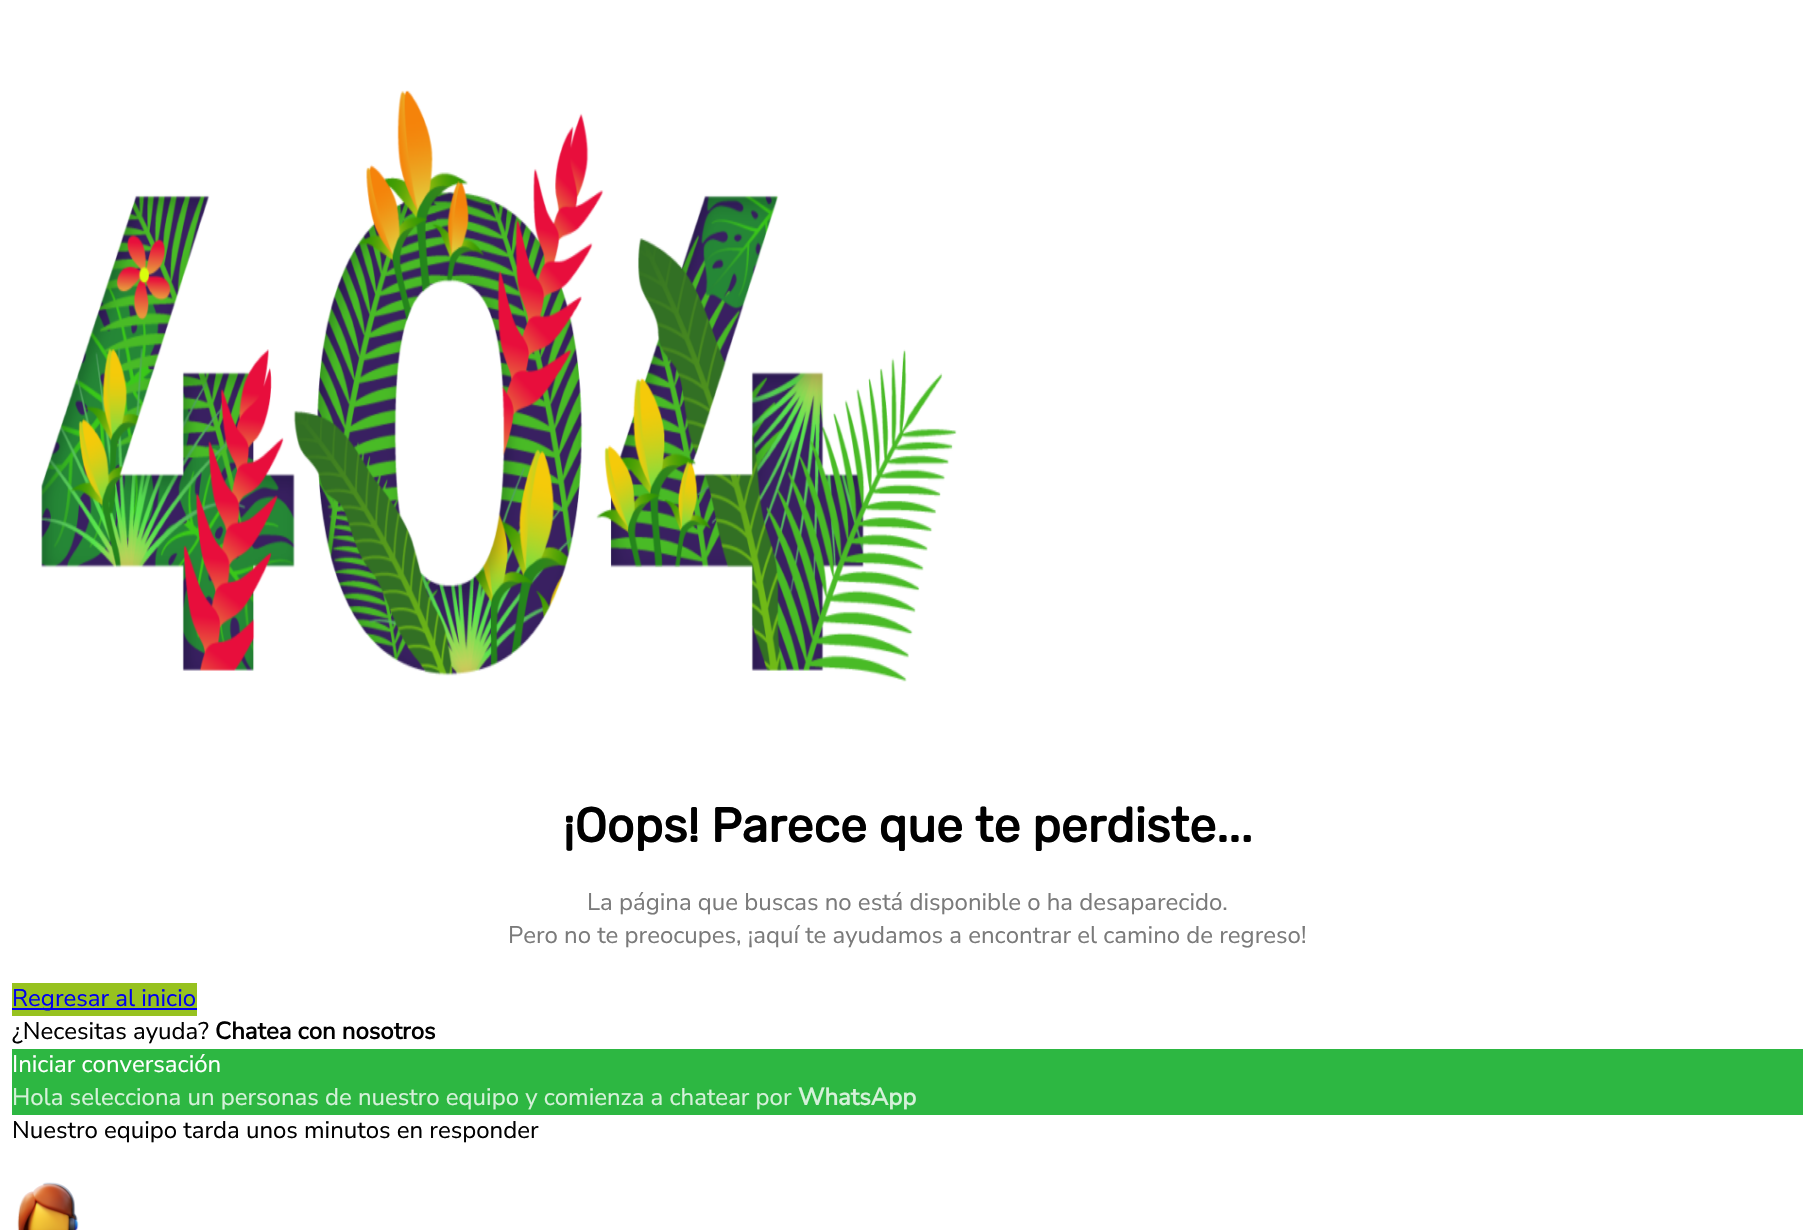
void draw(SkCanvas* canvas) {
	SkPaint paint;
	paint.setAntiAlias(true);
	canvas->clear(0xffffffff);
	canvas->drawImageRect(SkImages::DeferredFromEncodedData(SkData::MakeFromFileName("img1.png")), SkRect::MakeXYWH(41, 90, 916, 592), SkSamplingOptions());
	SkFont f1(fontMgr->matchFamilyStyle("Rubik", SkFontStyle::Bold()), 48);
	f1.setSubpixel(true);
	paint.setColor(0xff000000);
	canvas->drawString("¡Oops! Parece que te perdiste...", 563, 842, f1, paint);
	SkFont f2(fontMgr->matchFamilyStyle("Nunito Sans", SkFontStyle(200, SkFontStyle::kNormal_Width, SkFontStyle::kUpright_Slant)), 24);
	f2.setSubpixel(true);
	paint.setColor(0xff7a7a7a);
	canvas->drawString("La página que buscas no está disponible o ha desaparecido.", 587, 910, f2, paint);
	canvas->drawString("Pero no te preocupes, ¡aquí te ayudamos a encontrar el camino de regreso!", 508, 943, f2, paint);
	paint.setColor(0xff97c21f);
	canvas->drawRect(SkRect::MakeXYWH(12, 983, 185, 33), paint);
	paint.setColor(0xff0000ee);
	canvas->drawRect(SkRect::MakeXYWH(12, 1008, 185, 2), paint);
	canvas->drawString("Regresar al inicio", 12, 1006, f2, paint);
	paint.setColor(0xff000000);
	canvas->drawString("¿Necesitas ayuda?", 12, 1039, f2, paint);
	SkFont f3(fontMgr->matchFamilyStyle("Nunito Sans", SkFontStyle::Bold()), 24);
	f3.setSubpixel(true);
	canvas->drawString("Chatea con nosotros", 215, 1039, f3, paint);
	paint.setColor(0xff2db742);
	canvas->drawRect(SkRect::MakeXYWH(12, 1049, 1791, 66), paint);
	paint.setColor(0xffffffff);
	canvas->drawString("Iniciar conversación", 12, 1072, f2, paint);
	paint.setColor(0xffd5f1d9);
	canvas->drawString("Hola selecciona un personas de nuestro equipo y comienza a chatear por", 12, 1105, f2, paint);
	canvas->drawString("WhatsApp", 798, 1105, f3, paint);
	paint.setColor(0xff000000);
	canvas->drawString("Nuestro equipo tarda unos minutos en responder", 12, 1138, f2, paint);
	canvas->drawImageRect(SkImages::DeferredFromEncodedData(SkData::MakeFromFileName("img2.png")), SkRect::MakeXYWH(17, 1182, 62, 48), SkSamplingOptions());
}
